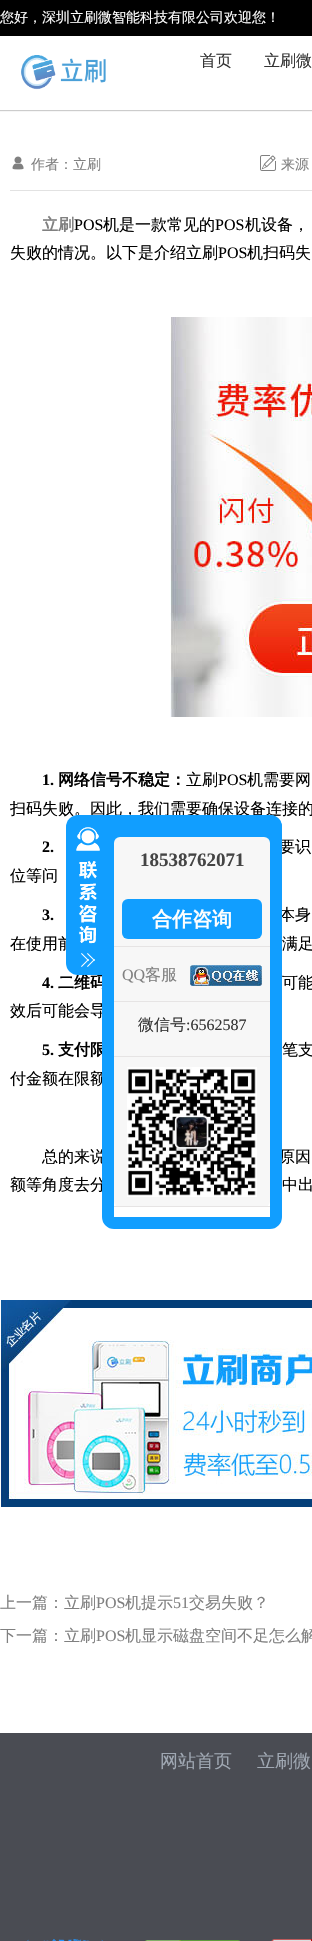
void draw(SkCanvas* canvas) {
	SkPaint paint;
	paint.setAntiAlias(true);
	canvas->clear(0xffffffff);
	paint.setColor(0x33000000);
	paint.setMaskFilter(SkMaskFilter::MakeBlur(kNormal_SkBlurStyle, 0.5));
	canvas->drawRect(SkRect::MakeXYWH(-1, -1, 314, 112), paint);
	paint.setMaskFilter(nullptr);
	paint.setColor(0xffffffff);
	canvas->drawRect(SkRect::MakeXYWH(0, 36, 312, 74), paint);
	paint.setColor(0xff000000);
	canvas->drawRect(SkRect::MakeXYWH(0, 0, 312, 36), paint);
	SkFont f1(fontMgr->matchFamilyStyle("WenQuanYi Zen Hei", SkFontStyle(500, SkFontStyle::kNormal_Width, SkFontStyle::kUpright_Slant)), 14);
	f1.setSubpixel(true);
	paint.setColor(0xfffefefe);
	canvas->drawString("您好，深圳立刷微智能科技有限公司欢迎您！", 0, 22, f1, paint);
	canvas->drawImageRect(SkImages::DeferredFromEncodedData(SkData::MakeFromFileName("img1.png")), SkRect::MakeXYWH(21, 55, 85, 35), SkSamplingOptions());
	SkFont f2(fontMgr->matchFamilyStyle("WenQuanYi Zen Hei", SkFontStyle(500, SkFontStyle::kNormal_Width, SkFontStyle::kUpright_Slant)), 16);
	f2.setSubpixel(true);
	paint.setColor(0xff333333);
	canvas->drawString("首页", 200, 66, f2, paint);
	canvas->drawString("立刷微", 264, 66, f2, paint);
	paint.setColor(0xffe2e2e2);
	canvas->drawRect(SkRect::MakeXYWH(10, 190, 302, 1), paint);
	canvas->drawImageRect(SkImages::DeferredFromEncodedData(SkData::MakeFromFileName("img2.png")), SkRect::MakeXYWH(12, 156, 12, 14), SkSamplingOptions());
	paint.setColor(0xff808080);
	canvas->drawString("作者：立刷", 31, 169, f1, paint);
	canvas->drawImageRect(SkImages::DeferredFromEncodedData(SkData::MakeFromFileName("img3.png")), SkRect::MakeXYWH(260, 155, 16, 16), SkSamplingOptions());
	canvas->drawString("来源", 281, 169, f1, paint);
	SkFont f3(fontMgr->matchFamilyStyle("WenQuanYi Zen Hei", SkFontStyle::Bold()), 16);
	f3.setSubpixel(true);
	canvas->drawString("立刷", 42, 230, f3, paint);
	SkFont f4(fontMgr->matchFamilyStyle("Liberation Serif", SkFontStyle::Normal()), 16);
	f4.setSubpixel(true);
	paint.setColor(0xff000000);
	canvas->drawString("POS", 74, 230, f4, paint);
	canvas->drawString("机是一款常见的", 103, 230, f2, paint);
	canvas->drawString("POS", 215, 230, f4, paint);
	canvas->drawString("机设备，", 245, 230, f2, paint);
	canvas->drawString("失败的情况。以下是介绍立刷", 10, 258, f2, paint);
	canvas->drawString("POS", 218, 258, f4, paint);
	canvas->drawString("机扫码失", 247, 258, f2, paint);
	canvas->drawImageRect(SkImages::DeferredFromEncodedData(SkData::MakeFromFileName("img4.png")), SkRect::MakeXYWH(170, 317, 142, 400), SkSamplingOptions());
	SkFont f5(fontMgr->matchFamilyStyle("Liberation Serif", SkFontStyle::Bold()), 16);
	f5.setSubpixel(true);
	canvas->drawString("1.", 42, 785, f5, paint);
	canvas->drawString("网络信号不稳定：", 58, 785, f3, paint);
	canvas->drawString("立刷", 186, 785, f2, paint);
	canvas->drawString("POS", 218, 785, f4, paint);
	canvas->drawString("机需要网", 247, 785, f2, paint);
	canvas->drawString("扫码失败。因此，我们需要确保设备连接的", 10, 814, f2, paint);
	canvas->drawString("2.", 42, 852, f5, paint);
	canvas->drawString("要识", 279, 852, f2, paint);
	canvas->drawString("位等问", 10, 881, f2, paint);
	canvas->drawString("3.", 42, 920, f5, paint);
	canvas->drawString("本身", 279, 920, f2, paint);
	canvas->drawString("在使用前", 10, 949, f2, paint);
	canvas->drawString("满足", 282, 949, f2, paint);
	canvas->drawString("4.", 42, 988, f5, paint);
	canvas->drawString("二维码", 58, 988, f3, paint);
	canvas->drawString("可能", 282, 988, f2, paint);
	canvas->drawString("效后可能会导", 10, 1016, f2, paint);
	canvas->drawString("5.", 42, 1055, f5, paint);
	canvas->drawString("支付限", 58, 1055, f3, paint);
	canvas->drawString("笔支", 282, 1055, f2, paint);
	canvas->drawString("付金额在限额", 10, 1084, f2, paint);
	canvas->drawString("总的来说", 42, 1162, f2, paint);
	canvas->drawString("原因", 279, 1162, f2, paint);
	canvas->drawString("额等角度去分", 10, 1190, f2, paint);
	canvas->drawString("中出", 282, 1190, f2, paint);
	canvas->drawImageRect(SkImages::DeferredFromEncodedData(SkData::MakeFromFileName("img5.png")), SkRect::MakeXYWH(0, 1300, 312, 207), SkSamplingOptions());
	paint.setColor(0xff808080);
	canvas->drawString("上一篇：立刷", 0, 1608, f2, paint);
	canvas->drawString("POS", 96, 1608, f4, paint);
	canvas->drawString("机提示", 125, 1608, f2, paint);
	canvas->drawString("51", 173, 1608, f4, paint);
	canvas->drawString("交易失败？", 189, 1608, f2, paint);
	canvas->drawString("下一篇：立刷", 0, 1641, f2, paint);
	canvas->drawString("POS", 96, 1641, f4, paint);
	canvas->drawString("机显示磁盘空间不足怎么解", 125, 1641, f2, paint);
	paint.setColor(0xff119eff);
	canvas->drawRoundRect(SkRect::MakeXYWH(66, 815, 216, 160), 12, 12, paint);
	canvas->drawImageRect(SkImages::DeferredFromEncodedData(SkData::MakeFromFileName("img6.png")), SkRect::MakeXYWH(76, 827, 24, 140), SkSamplingOptions());
	paint.setStroke(true);
	paint.setStrokeWidth(12);
	canvas->drawRoundRect(SkRect::MakeXYWH(108, 821, 168, 402), 6, 6, paint);
	paint.setStroke(false);
	paint.setColor(0xfff7f7f7);
	canvas->drawRoundRect(SkRect::MakeXYWH(114, 837, 156, 370), 6, 6, paint);
	SkFont f6(fontMgr->matchFamilyStyle("Liberation Serif", SkFontStyle::Bold()), 19);
	f6.setSubpixel(true);
	paint.setColor(0xff444444);
	canvas->drawString("18538762071", 140, 866, f6, paint);
	paint.setColor(0xffe6e4e4);
	canvas->drawRect(SkRect::MakeXYWH(114, 946, 156, 1), paint);
	paint.setColor(0xff119eff);
	canvas->drawRoundRect(SkRect::MakeXYWH(122, 899, 140, 40), 6, 6, paint);
	SkFont f7(fontMgr->matchFamilyStyle("WenQuanYi Zen Hei", SkFontStyle::Bold()), 20);
	f7.setSubpixel(true);
	paint.setColor(0xfffefefe);
	canvas->drawString("合作咨询", 152, 926, f7, paint);
	paint.setColor(0xffe6e4e4);
	canvas->drawRect(SkRect::MakeXYWH(114, 1001, 156, 1), paint);
	canvas->drawImageRect(SkImages::DeferredFromEncodedData(SkData::MakeFromFileName("img7.png")), SkRect::MakeXYWH(190, 965, 72, 21), SkSamplingOptions());
	paint.setColor(0xff808080);
	canvas->drawString("QQ", 122, 980, f4, paint);
	canvas->drawString("客服", 145, 980, f2, paint);
	paint.setColor(0xffe6e4e4);
	canvas->drawRect(SkRect::MakeXYWH(114, 1056, 156, 1), paint);
	paint.setColor(0xff333333);
	canvas->drawString("微信号", 138, 1030, f2, paint);
	canvas->drawString(":6562587", 186, 1030, f4, paint);
	paint.setColor(0xffe6e4e4);
	canvas->drawRect(SkRect::MakeXYWH(114, 1206, 156, 1), paint);
	canvas->drawImageRect(SkImages::DeferredFromEncodedData(SkData::MakeFromFileName("img8.png")), SkRect::MakeXYWH(127, 1067, 130, 130), SkSamplingOptions());
	paint.setColor(0xff4a4c53);
	canvas->drawRect(SkRect::MakeXYWH(0, 1733, 312, 208), paint);
	SkFont f8(fontMgr->matchFamilyStyle("WenQuanYi Zen Hei", SkFontStyle(500, SkFontStyle::kNormal_Width, SkFontStyle::kUpright_Slant)), 18);
	f8.setSubpixel(true);
	paint.setColor(0xffa0a8b3);
	canvas->drawString("网站首页", 160, 1767, f8, paint);
	canvas->drawString("立刷微", 257, 1767, f8, paint);
	canvas->drawImageRect(SkImages::DeferredFromEncodedData(SkData::MakeFromFileName("img9.png")), SkRect::MakeXYWH(27, 1939, 76, 2), SkSamplingOptions());
	canvas->drawImageRect(SkImages::DeferredFromEncodedData(SkData::MakeFromFileName("img10.png")), SkRect::MakeXYWH(145, 1940, 95, 1), SkSamplingOptions());
	canvas->drawImageRect(SkImages::DeferredFromEncodedData(SkData::MakeFromFileName("img11.png")), SkRect::MakeXYWH(271, 1939, 41, 2), SkSamplingOptions());
}
